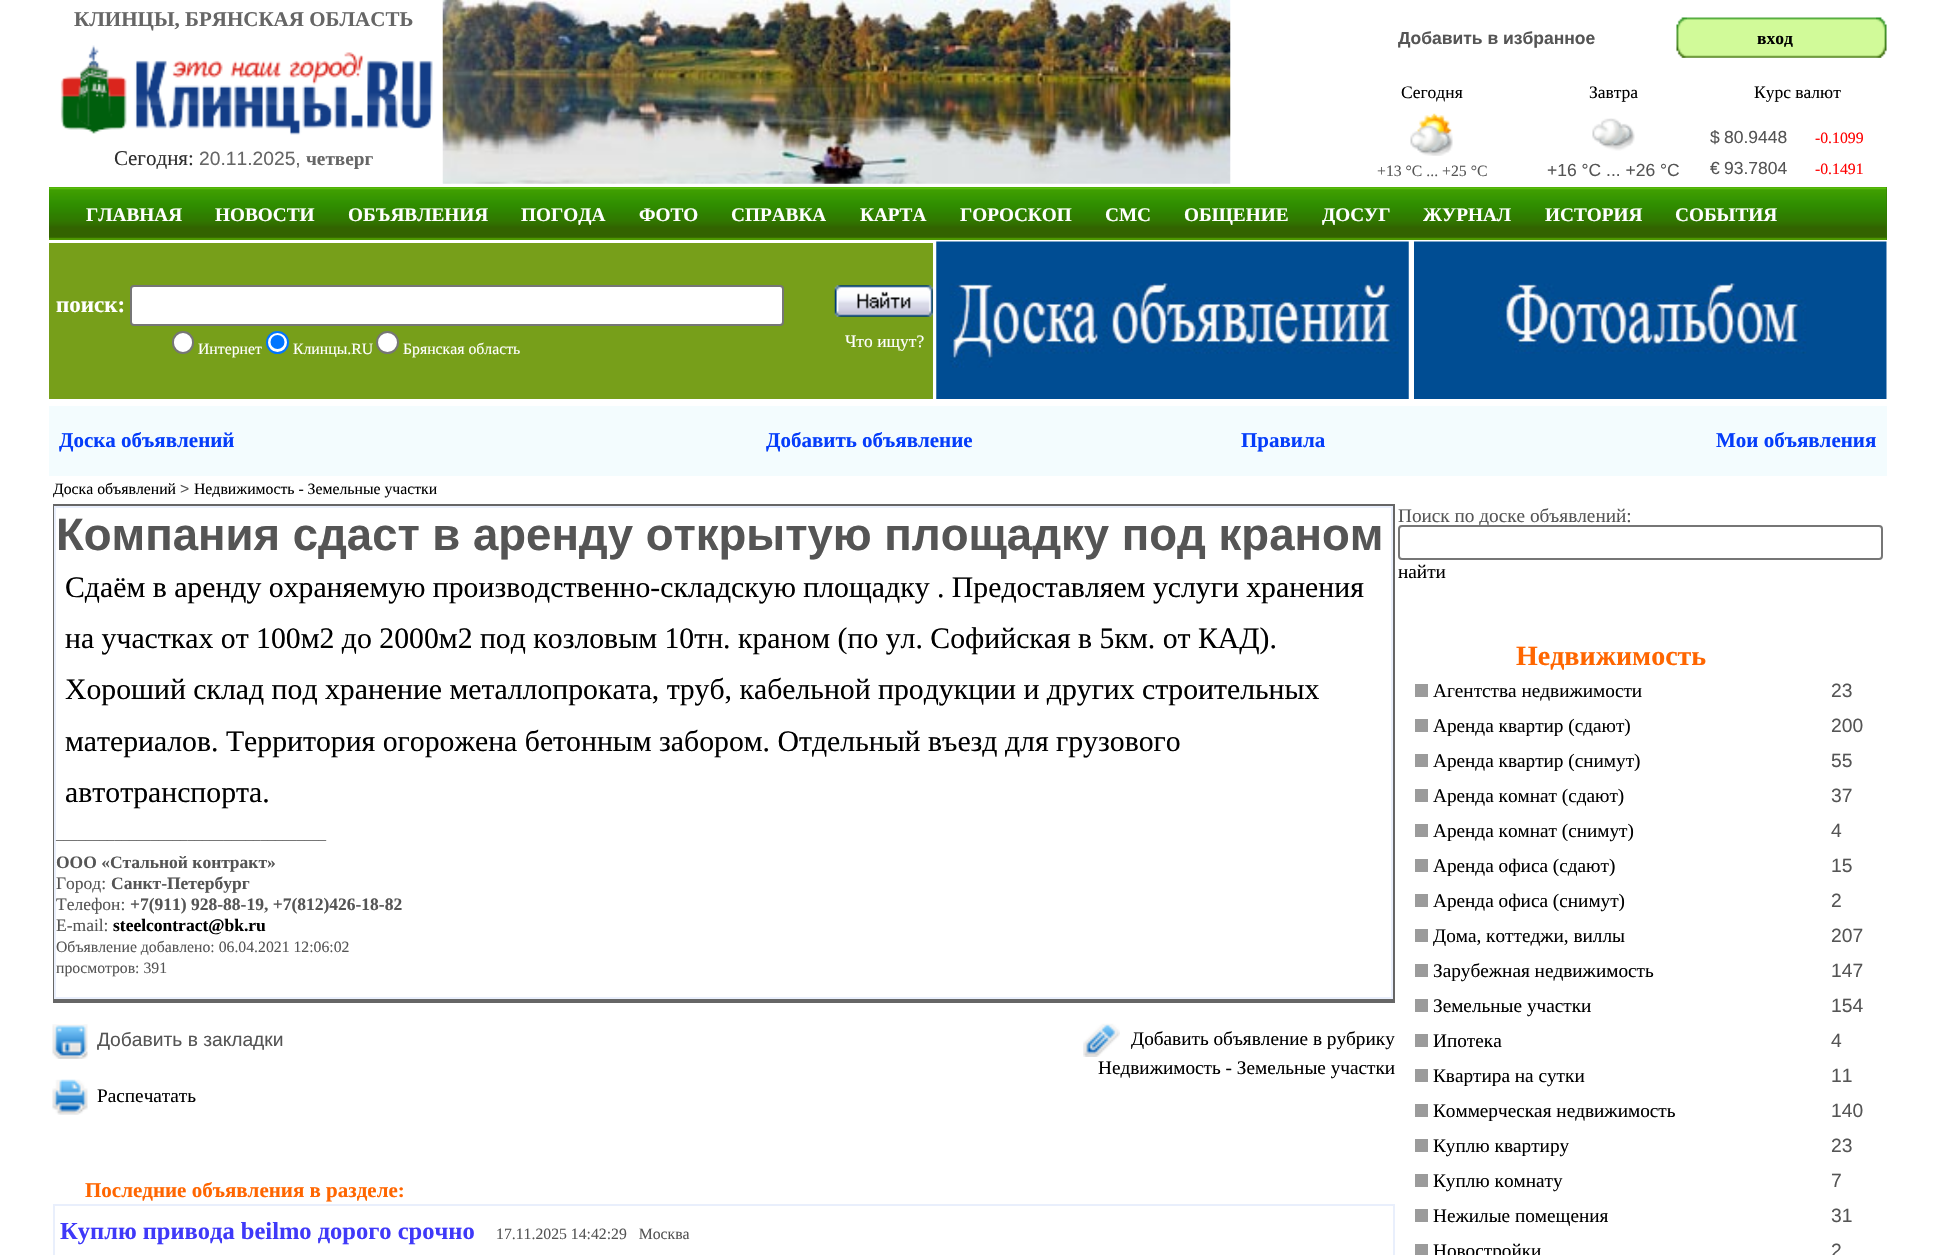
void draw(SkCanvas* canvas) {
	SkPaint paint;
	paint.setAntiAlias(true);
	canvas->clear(0xffffffff);
	SkFont f1(fontMgr->matchFamilyStyle("Liberation Serif", SkFontStyle::Bold()), 21);
	f1.setSubpixel(true);
	paint.setColor(0xff666666);
	canvas->drawString("КЛИНЦЫ, БРЯНСКАЯ ОБЛАСТЬ", 74, 26, f1, paint);
	canvas->drawImageRect(SkImages::DeferredFromEncodedData(SkData::MakeFromFileName("img1.png")), SkRect::MakeXYWH(60, 45, 373, 90), SkSamplingOptions());
	SkFont f2(fontMgr->matchFamilyStyle("Liberation Serif", SkFontStyle::Normal()), 21);
	f2.setSubpixel(true);
	paint.setColor(0xff2e2e2e);
	canvas->drawString("Сегодня:", 114, 165, f2, paint);
	SkFont f3(fontMgr->matchFamilyStyle("Liberation Sans", SkFontStyle::Normal()), 19.25);
	f3.setSubpixel(true);
	paint.setColor(0xff666666);
	canvas->drawString("20.11.2025,", 199, 165, f3, paint);
	SkFont f4(fontMgr->matchFamilyStyle("Liberation Serif", SkFontStyle::Bold()), 19.25);
	f4.setSubpixel(true);
	canvas->drawString("четверг", 306, 165, f4, paint);
	canvas->drawImageRect(SkImages::DeferredFromEncodedData(SkData::MakeFromFileName("img2.png")), SkRect::MakeXYWH(442, 0, 789, 184), SkSamplingOptions());
	SkFont f5(fontMgr->matchFamilyStyle("Liberation Sans", SkFontStyle::Bold()), 17.5);
	f5.setSubpixel(true);
	paint.setColor(0xff555555);
	canvas->drawString("Добавить в избранное", 1398, 44, f5, paint);
	canvas->drawImageRect(SkImages::DeferredFromEncodedData(SkData::MakeFromFileName("img3.png")), SkRect::MakeXYWH(1676, 17, 11, 41), SkSamplingOptions());
	canvas->drawImageRect(SkImages::DeferredFromEncodedData(SkData::MakeFromFileName("img4.png")), SkRect::MakeXYWH(1687, 17, 189, 41), SkSamplingOptions());
	SkFont f6(fontMgr->matchFamilyStyle("Liberation Serif", SkFontStyle::Bold()), 17.5);
	f6.setSubpixel(true);
	paint.setColor(0xff000000);
	canvas->drawString("вход", 1757, 44, f6, paint);
	canvas->drawImageRect(SkImages::DeferredFromEncodedData(SkData::MakeFromFileName("img5.png")), SkRect::MakeXYWH(1876, 17, 11, 41), SkSamplingOptions());
	SkFont f7(fontMgr->matchFamilyStyle("Liberation Serif", SkFontStyle::Normal()), 17.5);
	f7.setSubpixel(true);
	canvas->drawString("Сегодня", 1401, 98, f7, paint);
	canvas->drawString("Завтра", 1589, 98, f7, paint);
	canvas->drawString("Курс валют", 1754, 98, f7, paint);
	canvas->drawImageRect(SkImages::DeferredFromEncodedData(SkData::MakeFromFileName("img6.png")), SkRect::MakeXYWH(1410, 113, 43, 43), SkSamplingOptions());
	SkFont f8(fontMgr->matchFamilyStyle("Liberation Serif", SkFontStyle::Normal()), 15.75);
	f8.setSubpixel(true);
	paint.setColor(0xff555555);
	canvas->drawString("+13 °C ... +25 °C", 1377, 176, f8, paint);
	canvas->drawImageRect(SkImages::DeferredFromEncodedData(SkData::MakeFromFileName("img7.png")), SkRect::MakeXYWH(1592, 118, 43, 33), SkSamplingOptions());
	SkFont f9(fontMgr->matchFamilyStyle("Liberation Sans", SkFontStyle::Normal()), 17.5);
	f9.setSubpixel(true);
	canvas->drawString("+16 °C ... +26 °C", 1547, 176, f9, paint);
	canvas->drawString("$", 1710, 143, f9, paint);
	canvas->drawString("80.9448", 1724, 143, f9, paint);
	paint.setColor(0xffff0000);
	canvas->drawString("-0.1099", 1815, 143, f8, paint);
	paint.setColor(0xff555555);
	canvas->drawString("€", 1710, 174, f9, paint);
	canvas->drawString("93.7804", 1724, 174, f9, paint);
	paint.setColor(0xffff0000);
	canvas->drawString("-0.1491", 1815, 174, f8, paint);
	paint.setColor(0xff307900);
	canvas->drawRect(SkRect::MakeXYWH(49, 187, 1838, 53), paint);
	canvas->drawImageRect(SkImages::DeferredFromEncodedData(SkData::MakeFromFileName("img8.png")), SkRect::MakeXYWH(49, 187, 1838, 53), SkSamplingOptions());
	paint.setColor(0xffffffff);
	canvas->drawString("ГЛАВНАЯ", 86, 221, f4, paint);
	canvas->drawString("НОВОСТИ", 215, 221, f4, paint);
	canvas->drawString("ОБЪЯВЛЕНИЯ", 348, 221, f4, paint);
	canvas->drawString("ПОГОДА", 521, 221, f4, paint);
	canvas->drawString("ФОТО", 639, 221, f4, paint);
	canvas->drawString("СПРАВКА", 731, 221, f4, paint);
	canvas->drawString("КАРТА", 860, 221, f4, paint);
	canvas->drawString("ГОРОСКОП", 960, 221, f4, paint);
	canvas->drawString("СМС", 1105, 221, f4, paint);
	canvas->drawString("ОБЩЕНИЕ", 1184, 221, f4, paint);
	canvas->drawString("ДОСУГ", 1322, 221, f4, paint);
	canvas->drawString("ЖУРНАЛ", 1423, 221, f4, paint);
	canvas->drawString("ИСТОРИЯ", 1545, 221, f4, paint);
	canvas->drawString("СОБЫТИЯ", 1675, 221, f4, paint);
	paint.setColor(0xff779f1a);
	canvas->drawRect(SkRect::MakeXYWH(49, 243, 884, 156), paint);
	SkFont f10(fontMgr->matchFamilyStyle("Liberation Serif", SkFontStyle::Bold()), 23);
	f10.setSubpixel(true);
	paint.setColor(0xffffffff);
	canvas->drawString("поиск:", 56, 312, f10, paint);
	canvas->drawRoundRect(SkRect::MakeXYWH(131, 286, 652, 39), 3, 3, paint);
	paint.setStroke(true);
	paint.setStrokeWidth(2);
	paint.setColor(0xff767676);
	canvas->drawRoundRect(SkRect::MakeXYWH(131, 286, 652, 39), 3, 3, paint);
	canvas->drawImageRect(SkImages::DeferredFromEncodedData(SkData::MakeFromFileName("img9.png")), SkRect::MakeXYWH(834, 285, 99, 32), SkSamplingOptions());
	paint.setStroke(false);
	paint.setColor(0xffffffff);
	canvas->drawRoundRect(SkRect::MakeXYWH(173, 332, 20, 21), 10, 10, paint);
	paint.setStroke(true);
	paint.setColor(0xff767676);
	canvas->drawRoundRect(SkRect::MakeXYWH(173, 332, 20, 21), 10, 10, paint);
	paint.setStroke(false);
	paint.setColor(0xffffffff);
	canvas->drawString("Интернет", 198, 354, f8, paint);
	canvas->drawCircle(277.5, 342.5, 10.5, paint);
	paint.setStroke(true);
	paint.setColor(0xff0075ff);
	canvas->drawCircle(277.5, 342.5, 10.5, paint);
	paint.setStroke(false);
	canvas->drawCircle(277.5, 342, 7, paint);
	paint.setColor(0xffffffff);
	canvas->drawString("Клинцы.RU", 293, 354, f8, paint);
	canvas->drawCircle(387.5, 342.5, 10.5, paint);
	paint.setStroke(true);
	paint.setColor(0xff767676);
	canvas->drawCircle(387.5, 342.5, 10.5, paint);
	paint.setStroke(false);
	paint.setColor(0xffffffff);
	canvas->drawString("Брянская область", 403, 354, f8, paint);
	canvas->drawString("Что ищут?", 845, 347, f7, paint);
	canvas->drawImageRect(SkImages::DeferredFromEncodedData(SkData::MakeFromFileName("img10.png")), SkRect::MakeXYWH(936, 241, 473, 158), SkSamplingOptions());
	canvas->drawImageRect(SkImages::DeferredFromEncodedData(SkData::MakeFromFileName("img11.png")), SkRect::MakeXYWH(1414, 241, 473, 158), SkSamplingOptions());
	paint.setColor(0xfff3fcfe);
	canvas->drawRect(SkRect::MakeXYWH(49, 406, 1838, 70), paint);
	paint.setColor(0xff053dfa);
	canvas->drawString("Доска объявлений", 59, 447, f1, paint);
	canvas->drawString("Добавить объявление", 766, 447, f1, paint);
	canvas->drawString("Правила", 1241, 447, f1, paint);
	canvas->drawString("Мои объявления", 1716, 447, f1, paint);
	paint.setColor(0xff000000);
	canvas->drawString("Доска объявлений", 53, 494, f8, paint);
	SkFont f11(fontMgr->matchFamilyStyle("Liberation Sans", SkFontStyle::Normal()), 15.75);
	f11.setSubpixel(true);
	paint.setColor(0xff555555);
	canvas->drawString(">", 180, 494, f11, paint);
	paint.setColor(0xff000000);
	canvas->drawString("Недвижимость - Земельные участки", 194, 494, f8, paint);
	paint.setStroke(true);
	paint.setColor(0xff666666);
	canvas->drawRect(SkRect::MakeXYWH(54, 505, 1340, 495), paint);
	paint.setColor(0xffe9effc);
	canvas->drawRect(SkRect::MakeXYWH(55, 507, 1337, 491), paint);
	SkFont f12(fontMgr->matchFamilyStyle("Liberation Sans", SkFontStyle::Bold()), 45.5);
	f12.setSubpixel(true);
	paint.setStroke(false);
	paint.setColor(0xff555555);
	canvas->drawString("Компания сдаст в аренду открытую площадку под краном", 56, 550, f12, paint);
	SkFont f13(fontMgr->matchFamilyStyle("Liberation Serif", SkFontStyle::Normal()), 29.75);
	f13.setSubpixel(true);
	paint.setColor(0xff000000);
	canvas->drawString("Сдаём в аренду охраняемую производственно-складскую площадку . Предоставляем услуги хранения", 65, 597, f13, paint);
	canvas->drawString("на участках от 100м2 до 2000м2 под козловым 10тн. краном (по ул. Софийская в 5км. от КАД).", 65, 648, f13, paint);
	canvas->drawString("Хороший склад под хранение металлопроката, труб, кабельной продукции и других строительных", 65, 699, f13, paint);
	canvas->drawString("материалов. Территория огорожена бетонным забором. Отдельный въезд для грузового", 65, 751, f13, paint);
	canvas->drawString("автотранспорта.", 65, 802, f13, paint);
	SkFont f14(fontMgr->matchFamilyStyle("Liberation Serif", SkFontStyle::Normal()), 14.6);
	f14.setSubpixel(true);
	paint.setColor(0xff555555);
	canvas->drawString("_____________________________________", 56, 839, f14, paint);
	canvas->drawString("ООО «Стальной контракт»", 56, 868, f6, paint);
	canvas->drawString("Город:", 56, 889, f7, paint);
	canvas->drawString("Санкт-Петербург", 111, 889, f6, paint);
	canvas->drawString("Телефон:", 56, 910, f7, paint);
	canvas->drawString("+7(911) 928-88-19, +7(812)426-18-82", 130, 910, f6, paint);
	canvas->drawString("E-mail:", 56, 931, f7, paint);
	paint.setColor(0xff000000);
	canvas->drawString("steelcontract@bk.ru", 113, 931, f6, paint);
	paint.setColor(0xff555555);
	canvas->drawString("Объявление добавлено: 06.04.2021 12:06:02", 56, 952, f8, paint);
	canvas->drawString("просмотров: 391", 56, 973, f8, paint);
	paint.setColor(0xff666666);
	canvas->drawRect(SkRect::MakeXYWH(53, 1001, 1342, 2), paint);
	canvas->drawImageRect(SkImages::DeferredFromEncodedData(SkData::MakeFromFileName("img12.png")), SkRect::MakeXYWH(52, 1024, 36, 35), SkSamplingOptions());
	paint.setColor(0xff555555);
	canvas->drawString("Добавить в закладки", 97, 1046, f3, paint);
	canvas->drawImageRect(SkImages::DeferredFromEncodedData(SkData::MakeFromFileName("img13.png")), SkRect::MakeXYWH(52, 1079, 36, 36), SkSamplingOptions());
	SkFont f15(fontMgr->matchFamilyStyle("Liberation Serif", SkFontStyle::Normal()), 19.25);
	f15.setSubpixel(true);
	paint.setColor(0xff000000);
	canvas->drawString("Распечатать", 97, 1102, f15, paint);
	canvas->drawImageRect(SkImages::DeferredFromEncodedData(SkData::MakeFromFileName("img14.png")), SkRect::MakeXYWH(1083, 1023, 37, 34), SkSamplingOptions());
	canvas->drawString("Добавить объявление в рубрику", 1131, 1045, f15, paint);
	canvas->drawString("Недвижимость - Земельные участки", 1098, 1074, f15, paint);
	paint.setColor(0xffff6600);
	canvas->drawString("Последние объявления в разделе:", 85, 1197, f1, paint);
	paint.setStroke(true);
	paint.setColor(0xffe9effc);
	canvas->drawRect(SkRect::MakeXYWH(54, 1205, 1340, 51), paint);
	SkFont f16(fontMgr->matchFamilyStyle("Liberation Serif", SkFontStyle::Bold()), 24.5);
	f16.setSubpixel(true);
	paint.setStroke(false);
	paint.setColor(0xff3f39f9);
	canvas->drawString("Куплю привода beilmo дорого срочно", 60, 1239, f16, paint);
	paint.setColor(0xff555555);
	canvas->drawString("17.11.2025 14:42:29   Москва", 496, 1239, f8, paint);
	canvas->drawString("Поиск по доске объявлений:", 1398, 522, f15, paint);
	paint.setColor(0xffffffff);
	canvas->drawRoundRect(SkRect::MakeXYWH(1399, 526, 483, 33), 3, 3, paint);
	paint.setStroke(true);
	paint.setColor(0xff767676);
	canvas->drawRoundRect(SkRect::MakeXYWH(1399, 526, 483, 33), 3, 3, paint);
	paint.setStroke(false);
	paint.setColor(0xff000000);
	canvas->drawString("найти", 1398, 578, f15, paint);
	SkFont f17(fontMgr->matchFamilyStyle("Liberation Serif", SkFontStyle::Bold()), 28);
	f17.setSubpixel(true);
	paint.setColor(0xffff6600);
	canvas->drawString("Недвижимость", 1516, 665, f17, paint);
	paint.setColor(0xff9b9b9b);
	canvas->drawRect(SkRect::MakeXYWH(1415, 684, 13, 13), paint);
	paint.setColor(0xff000000);
	canvas->drawString("Агентства недвижимости", 1433, 697, f15, paint);
	paint.setColor(0xff555555);
	canvas->drawString("23", 1831, 697, f3, paint);
	paint.setColor(0xff9b9b9b);
	canvas->drawRect(SkRect::MakeXYWH(1415, 719, 13, 13), paint);
	paint.setColor(0xff000000);
	canvas->drawString("Аренда квартир (сдают)", 1433, 732, f15, paint);
	paint.setColor(0xff555555);
	canvas->drawString("200", 1831, 732, f3, paint);
	paint.setColor(0xff9b9b9b);
	canvas->drawRect(SkRect::MakeXYWH(1415, 754, 13, 13), paint);
	paint.setColor(0xff000000);
	canvas->drawString("Аренда квартир (снимут)", 1433, 767, f15, paint);
	paint.setColor(0xff555555);
	canvas->drawString("55", 1831, 767, f3, paint);
	paint.setColor(0xff9b9b9b);
	canvas->drawRect(SkRect::MakeXYWH(1415, 789, 13, 13), paint);
	paint.setColor(0xff000000);
	canvas->drawString("Аренда комнат (сдают)", 1433, 802, f15, paint);
	paint.setColor(0xff555555);
	canvas->drawString("37", 1831, 802, f3, paint);
	paint.setColor(0xff9b9b9b);
	canvas->drawRect(SkRect::MakeXYWH(1415, 824, 13, 13), paint);
	paint.setColor(0xff000000);
	canvas->drawString("Аренда комнат (снимут)", 1433, 837, f15, paint);
	paint.setColor(0xff555555);
	canvas->drawString("4", 1831, 837, f3, paint);
	paint.setColor(0xff9b9b9b);
	canvas->drawRect(SkRect::MakeXYWH(1415, 859, 13, 13), paint);
	paint.setColor(0xff000000);
	canvas->drawString("Аренда офиса (сдают)", 1433, 872, f15, paint);
	paint.setColor(0xff555555);
	canvas->drawString("15", 1831, 872, f3, paint);
	paint.setColor(0xff9b9b9b);
	canvas->drawRect(SkRect::MakeXYWH(1415, 894, 13, 13), paint);
	paint.setColor(0xff000000);
	canvas->drawString("Аренда офиса (снимут)", 1433, 907, f15, paint);
	paint.setColor(0xff555555);
	canvas->drawString("2", 1831, 907, f3, paint);
	paint.setColor(0xff9b9b9b);
	canvas->drawRect(SkRect::MakeXYWH(1415, 929, 13, 13), paint);
	paint.setColor(0xff000000);
	canvas->drawString("Дома, коттеджи, виллы", 1433, 942, f15, paint);
	paint.setColor(0xff555555);
	canvas->drawString("207", 1831, 942, f3, paint);
	paint.setColor(0xff9b9b9b);
	canvas->drawRect(SkRect::MakeXYWH(1415, 964, 13, 13), paint);
	paint.setColor(0xff000000);
	canvas->drawString("Зарубежная недвижимость", 1433, 977, f15, paint);
	paint.setColor(0xff555555);
	canvas->drawString("147", 1831, 977, f3, paint);
	paint.setColor(0xff9b9b9b);
	canvas->drawRect(SkRect::MakeXYWH(1415, 999, 13, 13), paint);
	paint.setColor(0xff000000);
	canvas->drawString("Земельные участки", 1433, 1012, f15, paint);
	paint.setColor(0xff555555);
	canvas->drawString("154", 1831, 1012, f3, paint);
	paint.setColor(0xff9b9b9b);
	canvas->drawRect(SkRect::MakeXYWH(1415, 1034, 13, 13), paint);
	paint.setColor(0xff000000);
	canvas->drawString("Ипотека", 1433, 1047, f15, paint);
	paint.setColor(0xff555555);
	canvas->drawString("4", 1831, 1047, f3, paint);
	paint.setColor(0xff9b9b9b);
	canvas->drawRect(SkRect::MakeXYWH(1415, 1069, 13, 13), paint);
	paint.setColor(0xff000000);
	canvas->drawString("Квартира на сутки", 1433, 1082, f15, paint);
	paint.setColor(0xff555555);
	canvas->drawString("11", 1831, 1082, f3, paint);
	paint.setColor(0xff9b9b9b);
	canvas->drawRect(SkRect::MakeXYWH(1415, 1104, 13, 13), paint);
	paint.setColor(0xff000000);
	canvas->drawString("Коммерческая недвижимость", 1433, 1117, f15, paint);
	paint.setColor(0xff555555);
	canvas->drawString("140", 1831, 1117, f3, paint);
	paint.setColor(0xff9b9b9b);
	canvas->drawRect(SkRect::MakeXYWH(1415, 1139, 13, 13), paint);
	paint.setColor(0xff000000);
	canvas->drawString("Куплю квартиру", 1433, 1152, f15, paint);
	paint.setColor(0xff555555);
	canvas->drawString("23", 1831, 1152, f3, paint);
	paint.setColor(0xff9b9b9b);
	canvas->drawRect(SkRect::MakeXYWH(1415, 1174, 13, 13), paint);
	paint.setColor(0xff000000);
	canvas->drawString("Куплю комнату", 1433, 1187, f15, paint);
	paint.setColor(0xff555555);
	canvas->drawString("7", 1831, 1187, f3, paint);
	paint.setColor(0xff9b9b9b);
	canvas->drawRect(SkRect::MakeXYWH(1415, 1209, 13, 13), paint);
	paint.setColor(0xff000000);
	canvas->drawString("Нежилые помещения", 1433, 1222, f15, paint);
	paint.setColor(0xff555555);
	canvas->drawString("31", 1831, 1222, f3, paint);
	paint.setColor(0xff9b9b9b);
	canvas->drawRect(SkRect::MakeXYWH(1415, 1244, 13, 11), paint);
	paint.setColor(0xff000000);
	canvas->drawString("Новостройки", 1433, 1257, f15, paint);
	paint.setColor(0xff555555);
	canvas->drawString("2", 1831, 1257, f3, paint);
}
